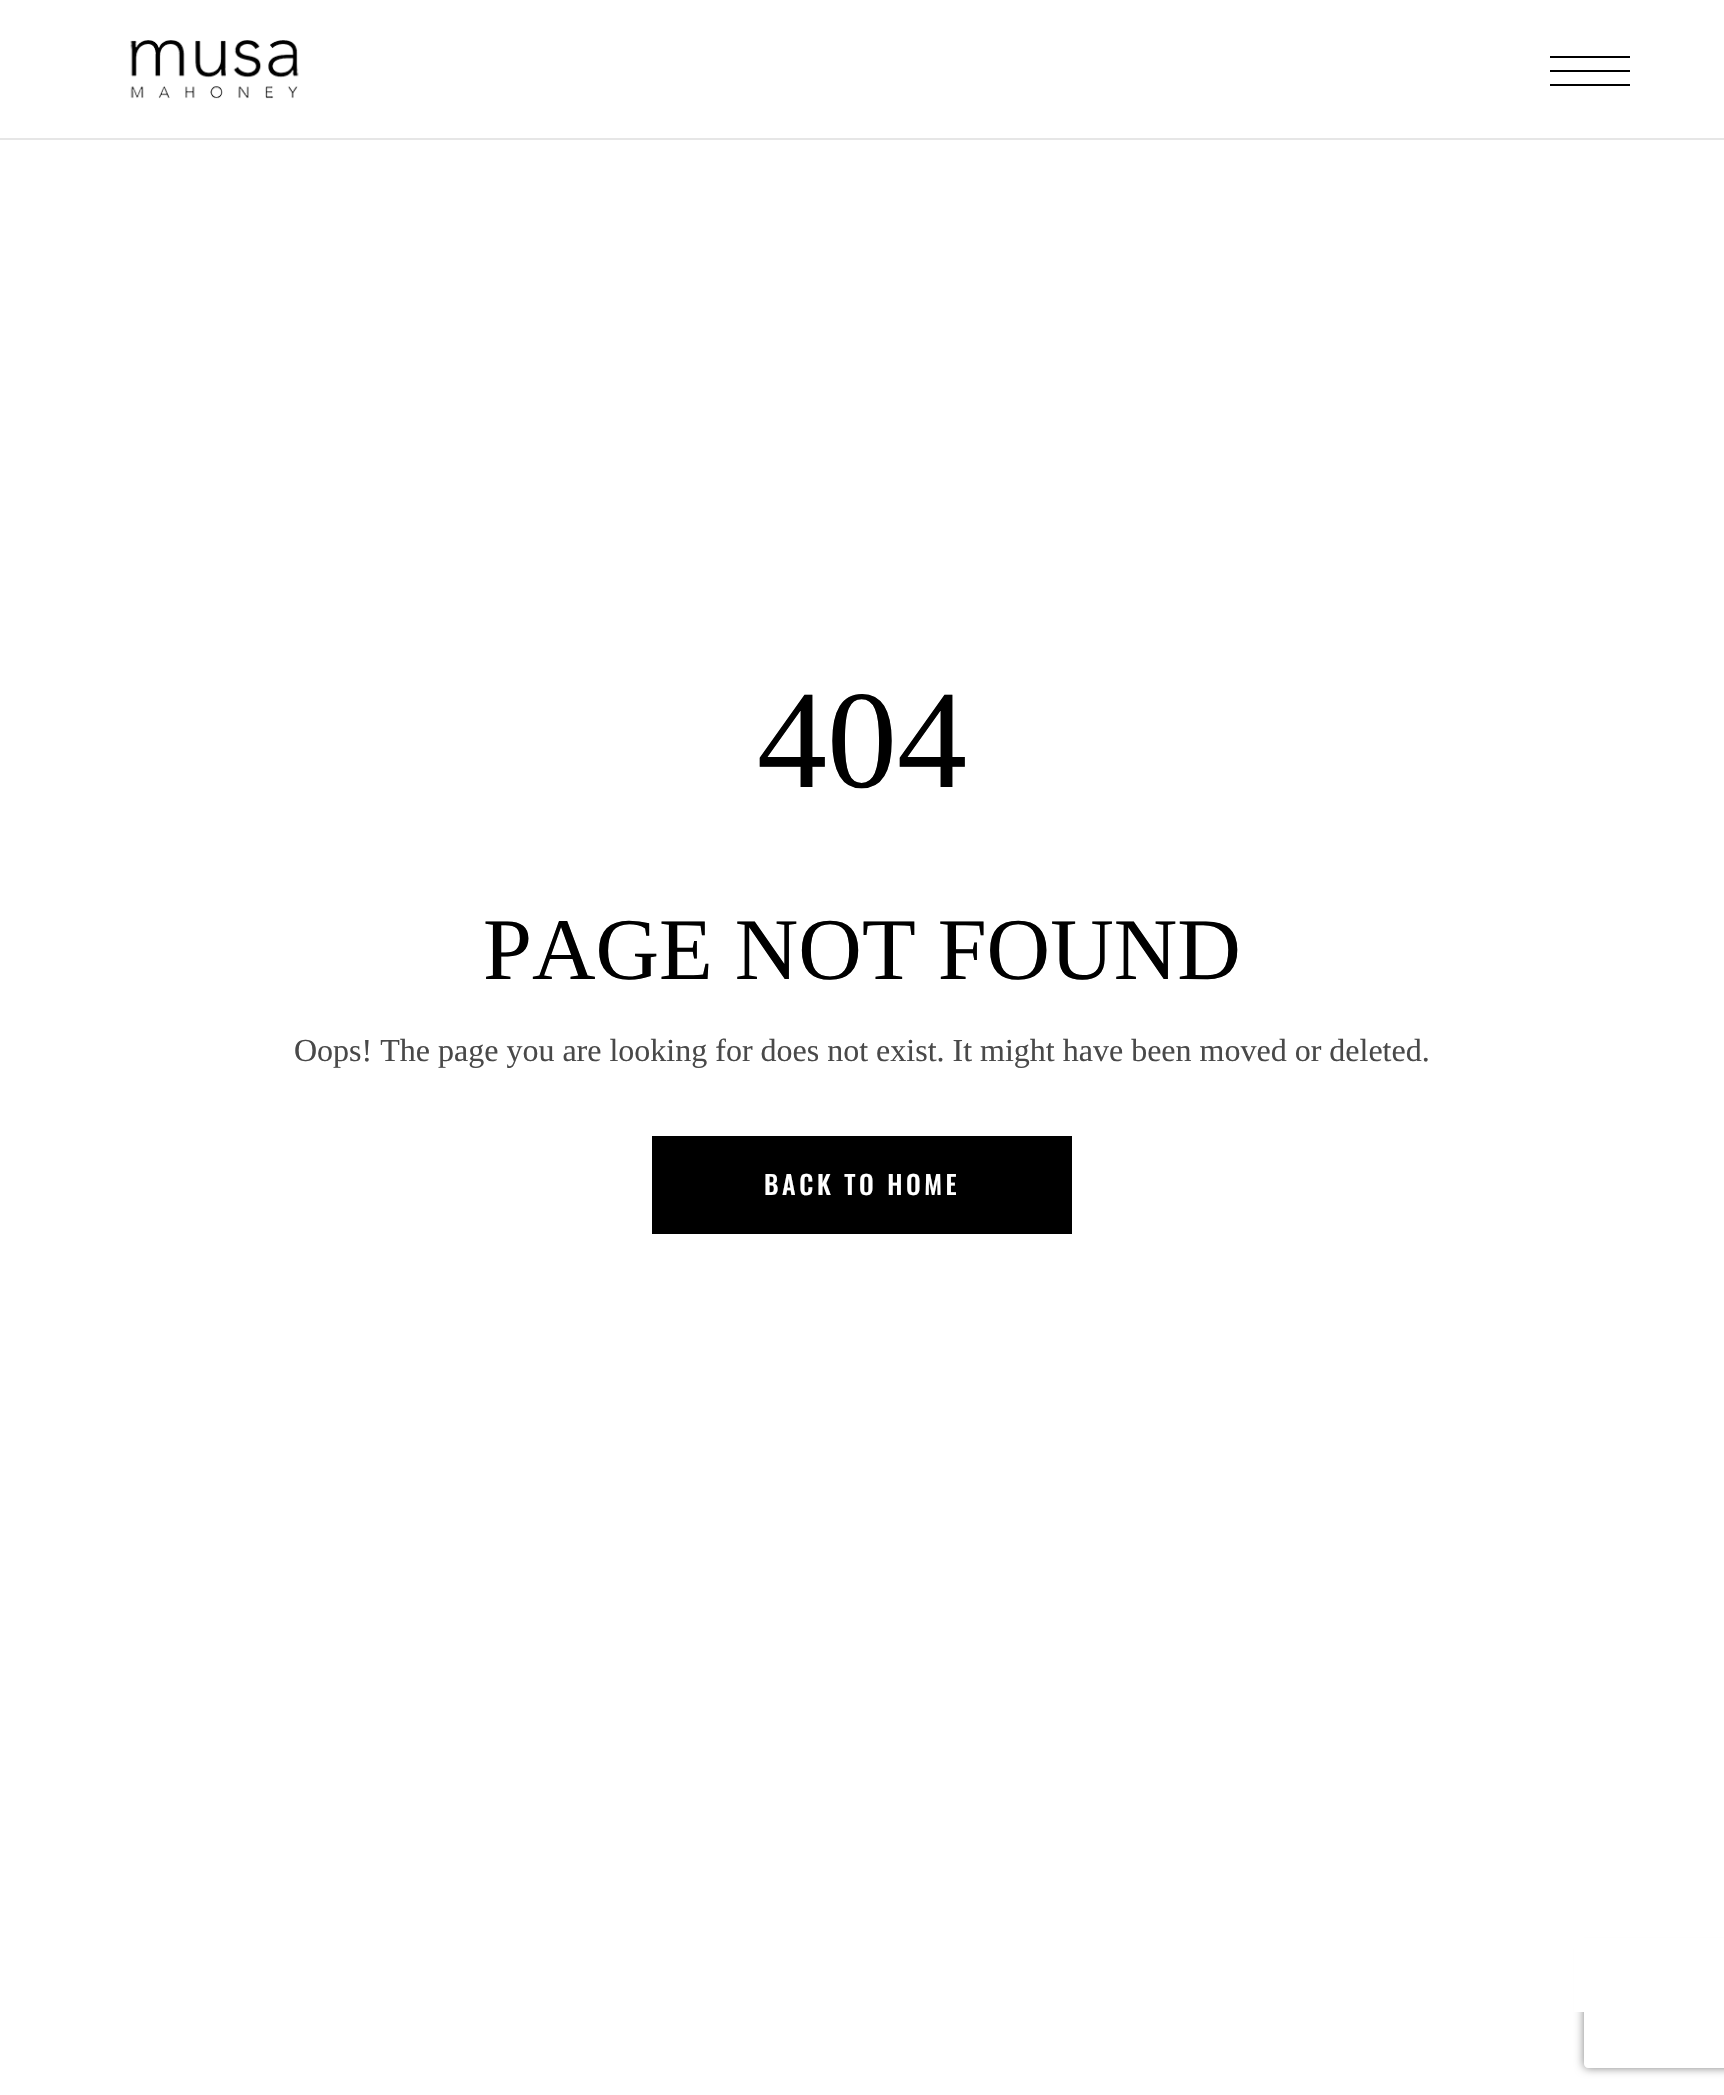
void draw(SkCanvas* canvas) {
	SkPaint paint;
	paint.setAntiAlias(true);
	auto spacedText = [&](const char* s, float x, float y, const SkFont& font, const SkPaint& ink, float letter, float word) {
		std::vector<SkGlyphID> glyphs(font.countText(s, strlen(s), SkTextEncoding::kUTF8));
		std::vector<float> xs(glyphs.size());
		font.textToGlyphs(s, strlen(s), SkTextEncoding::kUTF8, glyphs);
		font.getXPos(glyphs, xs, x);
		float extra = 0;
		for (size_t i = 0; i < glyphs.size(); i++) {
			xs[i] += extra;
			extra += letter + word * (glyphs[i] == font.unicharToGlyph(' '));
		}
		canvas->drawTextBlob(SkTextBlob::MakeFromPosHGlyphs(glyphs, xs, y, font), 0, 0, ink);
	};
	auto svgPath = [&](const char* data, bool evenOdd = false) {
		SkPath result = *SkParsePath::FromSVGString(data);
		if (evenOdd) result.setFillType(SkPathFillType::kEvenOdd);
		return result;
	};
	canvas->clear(0xffffffff);
	canvas->save();
	canvas->clipPath(svgPath("M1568 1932H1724V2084H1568ZM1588 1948H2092C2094 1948 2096 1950 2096 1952V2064C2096 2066 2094 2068 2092 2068H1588C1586 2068 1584 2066 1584 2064V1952C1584 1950 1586 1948 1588 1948Z", true), true);
	paint.setColor(0xff808080);
	paint.setMaskFilter(SkMaskFilter::MakeBlur(kNormal_SkBlurStyle, 5));
	canvas->drawRoundRect(SkRect::MakeXYWH(1584, 1948, 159, 120), 4, 4, paint);
	paint.setMaskFilter(nullptr);
	canvas->restore();
	paint.setColor(0xffffffff);
	canvas->drawRect(SkRect::MakeXYWH(1574, 1938, 150, 74), paint);
	paint.setColor(0xffe6e6e6);
	canvas->drawRect(SkRect::MakeXYWH(0, 138, 1724, 2), paint);
	canvas->drawImageRect(SkImages::DeferredFromEncodedData(SkData::MakeFromFileName("img1.png")), SkRect::MakeXYWH(130, 40, 169, 59), SkSamplingOptions());
	paint.setColor(0xff000000);
	canvas->drawRect(SkRect::MakeXYWH(1550, 56, 80, 2), paint);
	canvas->drawRect(SkRect::MakeXYWH(1550, 70, 80, 2), paint);
	canvas->drawRect(SkRect::MakeXYWH(1550, 84, 80, 2), paint);
	SkFont f1(fontMgr->matchFamilyStyle("Liberation Serif", SkFontStyle::Normal()), 140);
	f1.setSubpixel(true);
	canvas->drawString("404", 757, 787, f1, paint);
	SkFont f2(fontMgr->matchFamilyStyle("Liberation Serif", SkFontStyle::Normal()), 88);
	f2.setSubpixel(true);
	canvas->drawString("PAGE NOT FOUND", 483, 979, f2, paint);
	SkFont f3(fontMgr->matchFamilyStyle("Liberation Serif", SkFontStyle::Normal()), 32);
	f3.setSubpixel(true);
	paint.setColor(0xff494949);
	canvas->drawString("Oops! The page you are looking for does not exist. It might have been moved or deleted.", 294, 1061, f3, paint);
	paint.setColor(0xff000000);
	canvas->drawRect(SkRect::MakeXYWH(652, 1136, 420, 98), paint);
	SkFont f4(fontMgr->matchFamilyStyle("Oswald", SkFontStyle(500, SkFontStyle::kNormal_Width, SkFontStyle::kUpright_Slant)), 26);
	f4.setSubpixel(true);
	paint.setColor(0xffffffff);
	spacedText("BACK TO HOME", 764, 1195, f4, paint, 3.6, 0);
}
